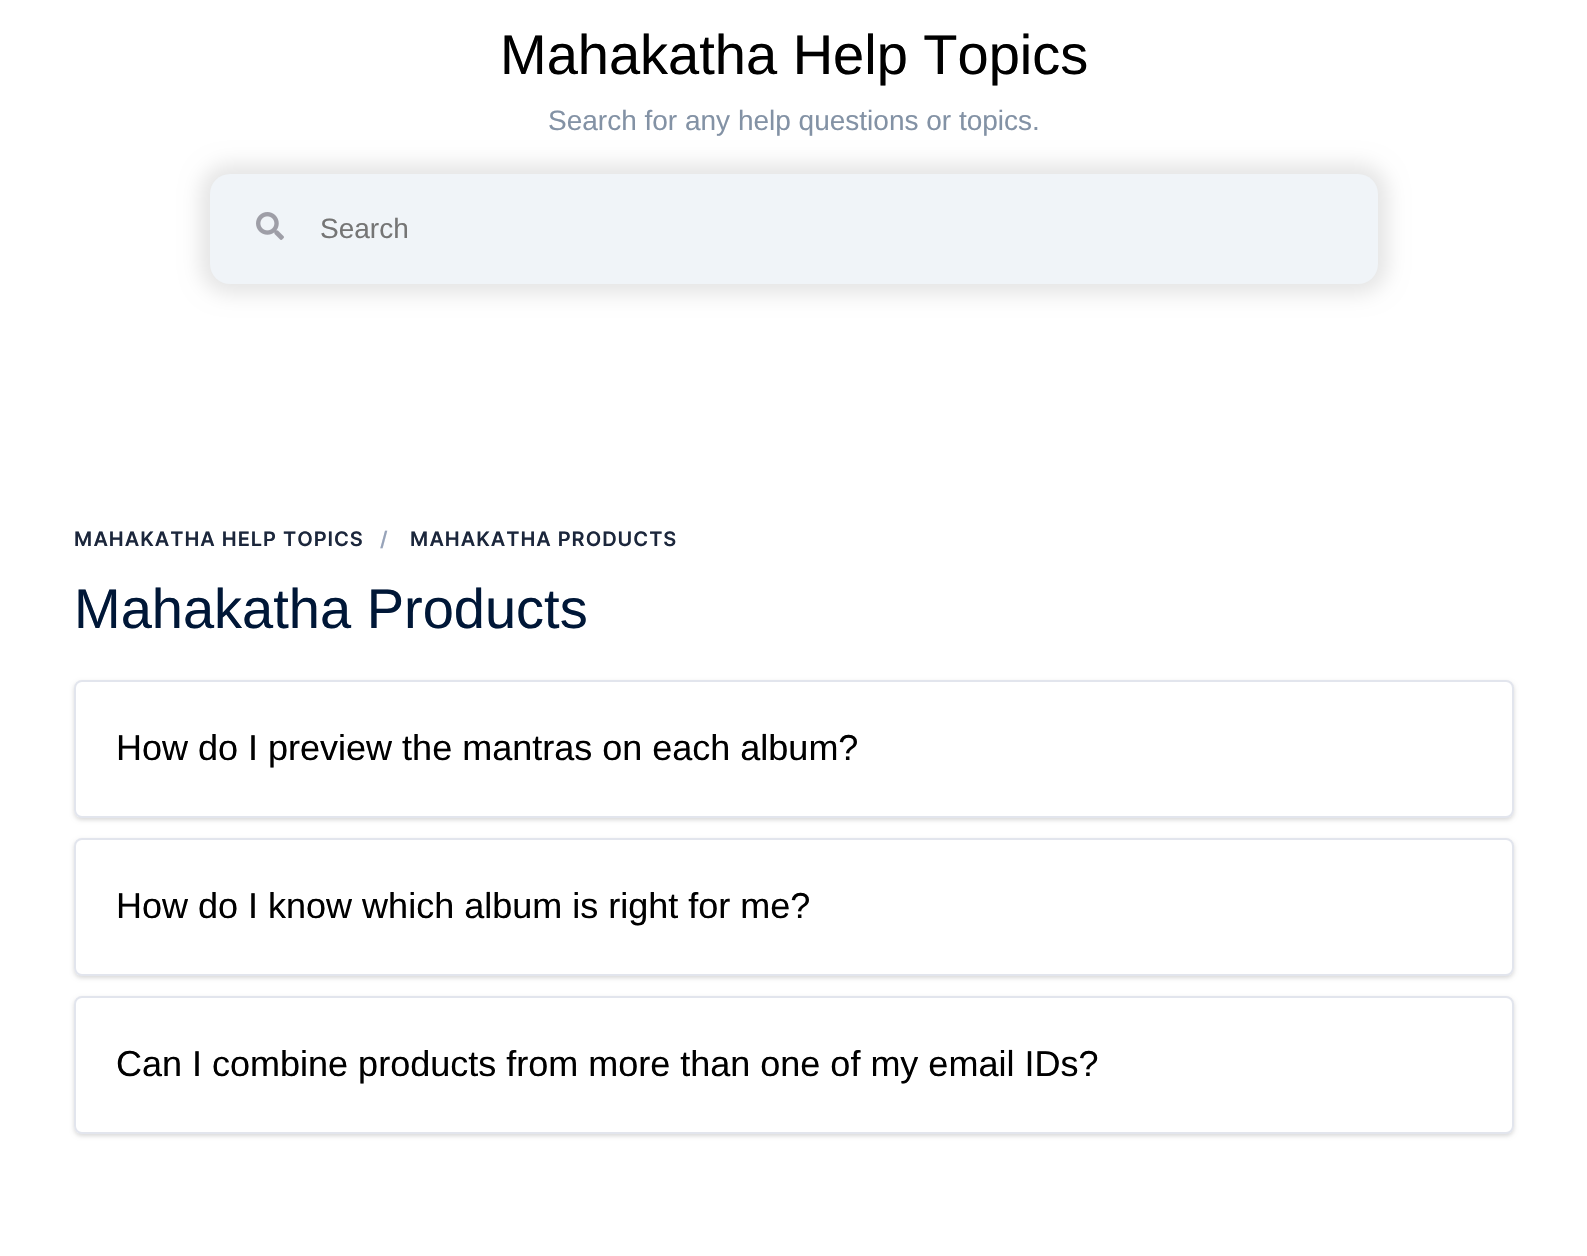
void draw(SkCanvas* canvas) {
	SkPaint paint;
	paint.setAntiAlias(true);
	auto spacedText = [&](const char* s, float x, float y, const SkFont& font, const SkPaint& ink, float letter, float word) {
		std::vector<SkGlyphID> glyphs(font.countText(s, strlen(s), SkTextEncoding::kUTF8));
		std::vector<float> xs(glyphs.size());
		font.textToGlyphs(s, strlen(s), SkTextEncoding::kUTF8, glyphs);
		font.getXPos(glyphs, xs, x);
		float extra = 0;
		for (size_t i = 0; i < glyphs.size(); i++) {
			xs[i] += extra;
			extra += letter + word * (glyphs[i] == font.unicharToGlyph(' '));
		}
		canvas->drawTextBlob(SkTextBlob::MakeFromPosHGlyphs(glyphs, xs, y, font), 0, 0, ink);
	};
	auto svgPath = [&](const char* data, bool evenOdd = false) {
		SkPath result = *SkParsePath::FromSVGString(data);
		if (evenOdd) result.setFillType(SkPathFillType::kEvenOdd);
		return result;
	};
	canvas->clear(0xffffffff);
	SkFont f1(fontMgr->matchFamilyStyle("Liberation Sans", SkFontStyle::Normal()), 56);
	f1.setSubpixel(true);
	paint.setColor(0xff000000);
	canvas->drawString("Mahakatha Help Topics", 500, 74, f1, paint);
	SkFont f2(fontMgr->matchFamilyStyle("Liberation Sans", SkFontStyle::Normal()), 28);
	f2.setSubpixel(true);
	paint.setColor(0xff8392a5);
	canvas->drawString("Search for any help questions or topics.", 548, 130, f2, paint);
	paint.setColor(0x1a000000);
	paint.setMaskFilter(SkMaskFilter::MakeBlur(kNormal_SkBlurStyle, 10));
	canvas->drawRoundRect(SkRect::MakeXYWH(200, 164, 1188, 130), 30, 30, paint);
	paint.setMaskFilter(nullptr);
	paint.setColor(0xfff0f4f8);
	canvas->drawRoundRect(SkRect::MakeXYWH(210, 174, 1168, 110), 20, 20, paint);
	canvas->drawImageRect(SkImages::DeferredFromEncodedData(SkData::MakeFromFileName("img1.png")), SkRect::MakeXYWH(256, 212, 28, 28), SkSamplingOptions());
	paint.setColor(0xff757575);
	canvas->drawString("Search", 320, 238, f2, paint);
	SkFont f3(fontMgr->matchFamilyStyle("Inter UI", SkFontStyle(600, SkFontStyle::kNormal_Width, SkFontStyle::kUpright_Slant)), 20);
	f3.setSubpixel(true);
	paint.setColor(0xff1c273c);
	spacedText("MAHAKATHA HELP TOPICS", 74, 546, f3, paint, 1, 0);
	paint.setColor(0xff97a3b9);
	spacedText("/", 380, 546, f3, paint, 1, 0);
	paint.setColor(0xff1c273c);
	spacedText("MAHAKATHA PRODUCTS", 410, 546, f3, paint, 1, 0);
	paint.setColor(0xff001737);
	canvas->drawString("Mahakatha Products", 74, 628, f1, paint);
	canvas->save();
	canvas->clipPath(svgPath("M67 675H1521V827H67ZM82 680H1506C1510.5 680 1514 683.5 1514 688V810C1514 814.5 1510.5 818 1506 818H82C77.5 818 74 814.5 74 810V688C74 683.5 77.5 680 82 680Z", true), true);
	paint.setColor(0x26000000);
	paint.setMaskFilter(SkMaskFilter::MakeBlur(kNormal_SkBlurStyle, 2));
	canvas->drawRoundRect(SkRect::MakeXYWH(74, 682, 1440, 138), 8, 8, paint);
	paint.setMaskFilter(nullptr);
	canvas->restore();
	paint.setStroke(true);
	paint.setStrokeWidth(2);
	paint.setColor(0x29485e90);
	canvas->drawRoundRect(SkRect::MakeXYWH(75, 681, 1438, 136), 7, 7, paint);
	SkFont f4(fontMgr->matchFamilyStyle("Liberation Sans", SkFontStyle::Normal()), 36);
	f4.setSubpixel(true);
	paint.setStroke(false);
	paint.setColor(0xff000000);
	canvas->drawString("How do I preview the mantras on each album?", 116, 760, f4, paint);
	canvas->save();
	canvas->clipPath(svgPath("M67 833H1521V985H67ZM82 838H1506C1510.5 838 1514 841.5 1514 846V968C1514 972.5 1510.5 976 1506 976H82C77.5 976 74 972.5 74 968V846C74 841.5 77.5 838 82 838Z", true), true);
	paint.setColor(0x26000000);
	paint.setMaskFilter(SkMaskFilter::MakeBlur(kNormal_SkBlurStyle, 2));
	canvas->drawRoundRect(SkRect::MakeXYWH(74, 840, 1440, 138), 8, 8, paint);
	paint.setMaskFilter(nullptr);
	canvas->restore();
	paint.setStroke(true);
	paint.setColor(0x29485e90);
	canvas->drawRoundRect(SkRect::MakeXYWH(75, 839, 1438, 136), 7, 7, paint);
	paint.setStroke(false);
	paint.setColor(0xff000000);
	canvas->drawString("How do I know which album is right for me?", 116, 918, f4, paint);
	canvas->save();
	canvas->clipPath(svgPath("M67 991H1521V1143H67ZM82 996H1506C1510.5 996 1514 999.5 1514 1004V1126C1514 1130.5 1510.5 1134 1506 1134H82C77.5 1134 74 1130.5 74 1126V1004C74 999.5 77.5 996 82 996Z", true), true);
	paint.setColor(0x26000000);
	paint.setMaskFilter(SkMaskFilter::MakeBlur(kNormal_SkBlurStyle, 2));
	canvas->drawRoundRect(SkRect::MakeXYWH(74, 998, 1440, 138), 8, 8, paint);
	paint.setMaskFilter(nullptr);
	canvas->restore();
	paint.setStroke(true);
	paint.setColor(0x29485e90);
	canvas->drawRoundRect(SkRect::MakeXYWH(75, 997, 1438, 136), 7, 7, paint);
	paint.setStroke(false);
	paint.setColor(0xff000000);
	canvas->drawString("Can I combine products from more than one of my email IDs?", 116, 1076, f4, paint);
}
